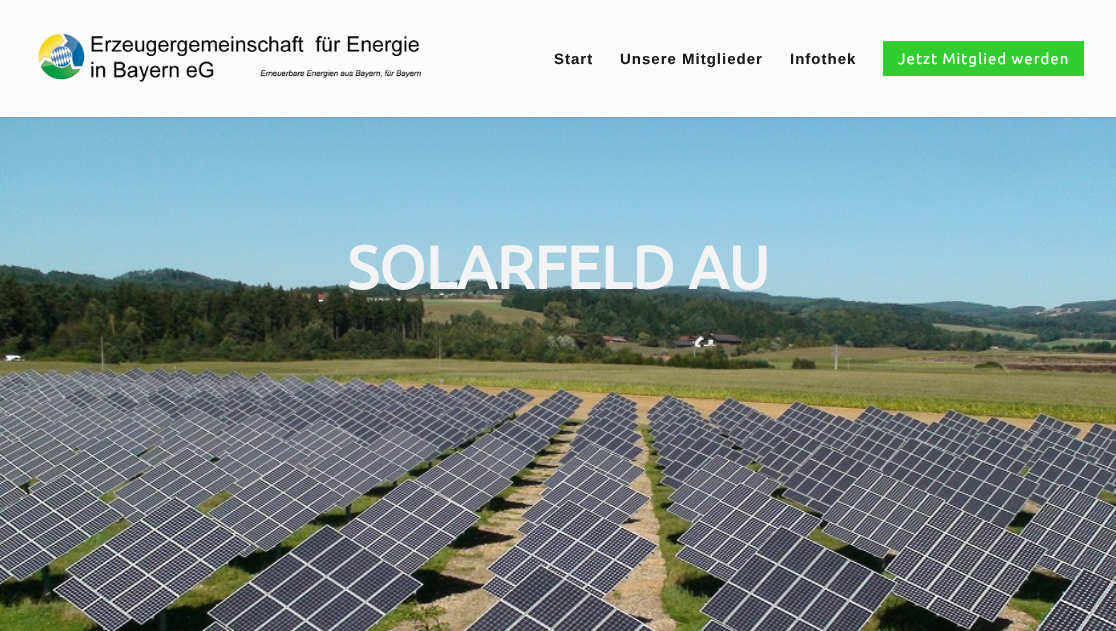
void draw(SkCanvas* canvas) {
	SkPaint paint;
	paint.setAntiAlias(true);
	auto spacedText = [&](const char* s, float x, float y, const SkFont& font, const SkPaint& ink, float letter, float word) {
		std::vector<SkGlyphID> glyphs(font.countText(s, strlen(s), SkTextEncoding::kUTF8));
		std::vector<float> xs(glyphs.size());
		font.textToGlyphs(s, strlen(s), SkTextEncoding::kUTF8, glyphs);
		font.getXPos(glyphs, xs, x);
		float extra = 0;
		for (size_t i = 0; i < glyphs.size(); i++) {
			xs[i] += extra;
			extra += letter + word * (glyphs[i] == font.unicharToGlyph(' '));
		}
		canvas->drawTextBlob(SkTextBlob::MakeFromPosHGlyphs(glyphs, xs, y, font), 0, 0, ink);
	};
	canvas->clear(0xffffffff);
	canvas->drawImageRect(SkImages::DeferredFromEncodedData(SkData::MakeFromFileName("img2.png")), SkRect::MakeXYWH(0, 117, 1116, 514), SkSamplingOptions());
	paint.setColor(0x1a000000);
	canvas->drawRect(SkRect::MakeXYWH(0, 117, 1116, 1), paint);
	paint.setColor(0xfffcfcfc);
	canvas->drawRect(SkRect::MakeXYWH(0, 0, 1116, 117), paint);
	canvas->drawImageRect(SkImages::DeferredFromEncodedData(SkData::MakeFromFileName("img1.png")), SkRect::MakeXYWH(38, 33, 383, 50), SkSamplingOptions());
	SkFont f1(fontMgr->matchFamilyStyle("Liberation Sans", SkFontStyle::Bold()), 15);
	f1.setSubpixel(true);
	paint.setColor(0xff1c1c1c);
	spacedText("Start", 554, 64, f1, paint, 1, 0);
	spacedText("Unsere Mitglieder", 620, 64, f1, paint, 1, 0);
	spacedText("Infothek", 790, 64, f1, paint, 1, 0);
	paint.setColor(0xff32cd32);
	canvas->drawRect(SkRect::MakeXYWH(883, 41, 201, 35), paint);
	SkFont f2(fontMgr->matchFamilyStyle("Ubuntu", SkFontStyle::Normal()), 15);
	f2.setSubpixel(true);
	paint.setColor(0xffffffff);
	spacedText("Jetzt Mitglied werden", 898, 64, f2, paint, 1, 0);
	SkFont f3(fontMgr->matchFamilyStyle("Ubuntu", SkFontStyle::Bold()), 60);
	f3.setSubpixel(true);
	paint.setColor(0xfff3f3f3);
	canvas->drawString("SOLARFELD AU", 347, 289, f3, paint);
}
